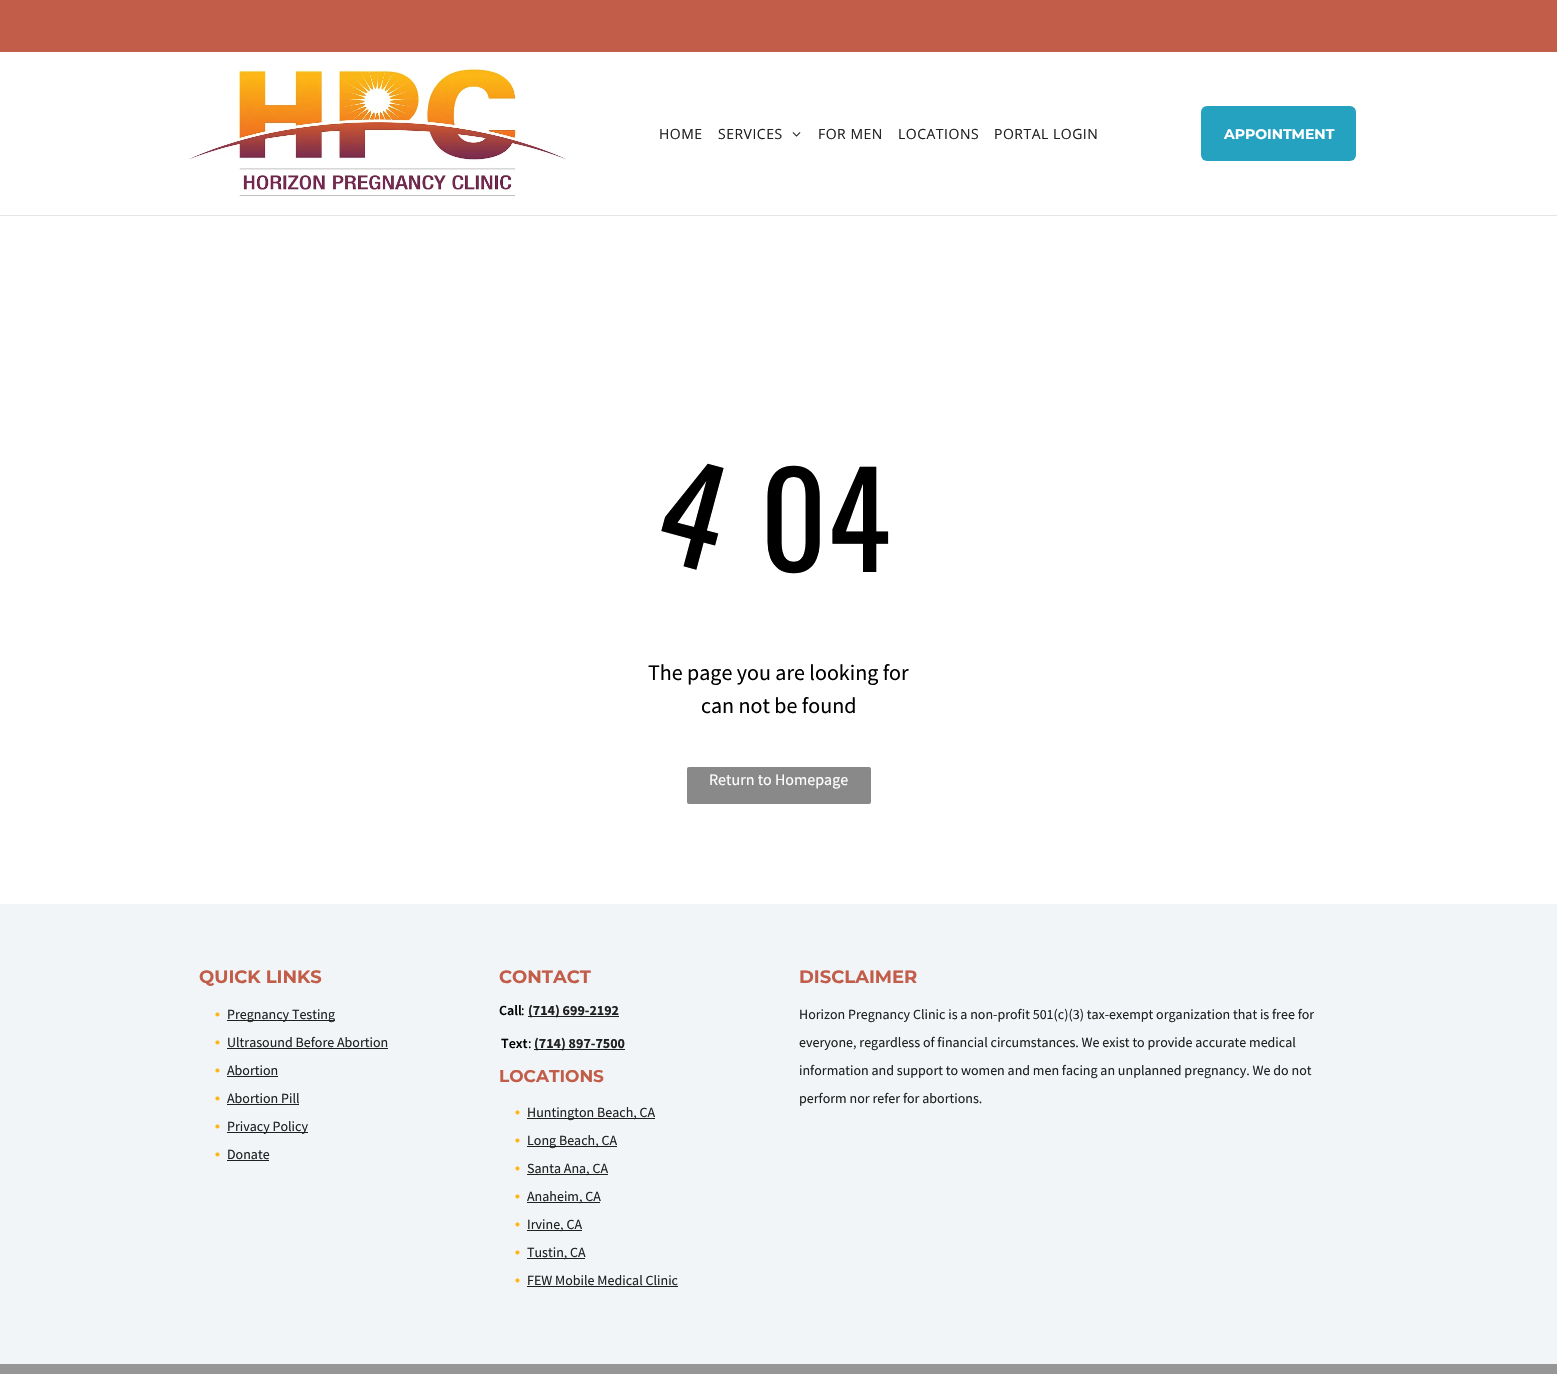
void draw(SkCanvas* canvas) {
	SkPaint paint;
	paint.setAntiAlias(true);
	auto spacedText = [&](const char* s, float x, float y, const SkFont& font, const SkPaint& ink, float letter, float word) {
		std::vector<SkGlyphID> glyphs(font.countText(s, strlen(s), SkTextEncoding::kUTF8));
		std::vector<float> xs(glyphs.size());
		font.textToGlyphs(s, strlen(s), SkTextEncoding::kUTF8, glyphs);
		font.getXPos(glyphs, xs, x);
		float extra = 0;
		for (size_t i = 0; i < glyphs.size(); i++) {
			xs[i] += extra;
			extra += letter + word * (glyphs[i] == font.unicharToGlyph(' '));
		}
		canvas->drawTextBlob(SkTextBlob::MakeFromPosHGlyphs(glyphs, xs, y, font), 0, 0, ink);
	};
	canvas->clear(0xffffffff);
	paint.setColor(0xffc25d49);
	canvas->drawRect(SkRect::MakeXYWH(0, 0, 1557, 52), paint);
	paint.setColor(0xffe4e5e4);
	canvas->drawRect(SkRect::MakeXYWH(0, 215, 1557, 1), paint);
	canvas->drawImageRect(SkImages::DeferredFromEncodedData(SkData::MakeFromFileName("img1.png")), SkRect::MakeXYWH(189, 67, 377, 129), SkSamplingOptions());
	SkFont f1(fontMgr->matchFamilyStyle("Open Sans", SkFontStyle::Normal()), 14);
	f1.setSubpixel(true);
	paint.setColor(0xff212121);
	spacedText("HOME", 659, 139, f1, paint, 0.5, 0);
	spacedText("SERVICES", 718, 139, f1, paint, 0.5, 0);
	canvas->drawImageRect(SkImages::DeferredFromEncodedData(SkData::MakeFromFileName("img2.png")), SkRect::MakeXYWH(792, 132, 9, 5), SkSamplingOptions());
	spacedText("FOR MEN", 818, 139, f1, paint, 0.5, 0);
	spacedText("LOCATIONS", 898, 139, f1, paint, 0.5, 0);
	spacedText("PORTAL LOGIN", 994, 139, f1, paint, 0.5, 0);
	paint.setColor(0xff25a2c0);
	canvas->drawRoundRect(SkRect::MakeXYWH(1201, 106, 155, 55), 6, 6, paint);
	SkFont f2(fontMgr->matchFamilyStyle("Montserrat", SkFontStyle::Bold()), 14);
	f2.setSubpixel(true);
	paint.setColor(0xffffffff);
	canvas->drawString("APPOINTMENT", 1224, 139, f2, paint);
	SkFont f3(fontMgr->matchFamilyStyle("Oswald", SkFontStyle::Normal()), 130);
	f3.setSubpixel(true);
	paint.setColor(0xff000000);
	canvas->save();
	canvas->rotate(15, 649, 557);
	canvas->drawString("4", 649, 557, f3, paint);
	canvas->restore();
	canvas->drawString("04", 760, 572, f3, paint);
	SkFont f4(fontMgr->matchFamilyStyle("Source Sans Pro", SkFontStyle::Normal()), 22);
	f4.setSubpixel(true);
	canvas->drawString("The page you are looking for", 648, 680, f4, paint);
	canvas->drawString("can not be found", 701, 713, f4, paint);
	paint.setColor(0xff898989);
	canvas->drawRoundRect(SkRect::MakeXYWH(687, 767, 184, 37), 2, 2, paint);
	SkFont f5(fontMgr->matchFamilyStyle("Source Sans Pro", SkFontStyle::Normal()), 16);
	f5.setSubpixel(true);
	paint.setColor(0xffffffff);
	canvas->drawString("Return to Homepage", 709, 785, f5, paint);
	paint.setColor(0xfff1f5f7);
	canvas->drawRect(SkRect::MakeXYWH(0, 904, 1557, 460), paint);
	SkFont f6(fontMgr->matchFamilyStyle("Montserrat", SkFontStyle::Bold()), 18);
	f6.setSubpixel(true);
	paint.setColor(0xffc25d49);
	canvas->drawString("QUICK LINKS", 199, 983, f6, paint);
	SkFont f7(fontMgr->matchFamilyStyle("Liberation Sans", SkFontStyle::Bold()), 14);
	f7.setSubpixel(true);
	paint.setColor(0xfffdb614);
	canvas->drawString("•", 215, 1019, f7, paint);
	paint.setColor(0xff212121);
	canvas->drawRect(SkRect::MakeXYWH(227, 1020, 108, 1), paint);
	SkFont f8(fontMgr->matchFamilyStyle("Source Sans Pro", SkFontStyle::Normal()), 14);
	f8.setSubpixel(true);
	canvas->drawString("Pregnancy Testing", 227, 1019, f8, paint);
	paint.setColor(0xfffdb614);
	canvas->drawString("•", 215, 1047, f7, paint);
	paint.setColor(0xff212121);
	canvas->drawString("Ultrasound Before Abortion", 227, 1047, f8, paint);
	canvas->drawRect(SkRect::MakeXYWH(227, 1048, 161, 1), paint);
	paint.setColor(0xfffdb614);
	canvas->drawString("•", 215, 1075, f7, paint);
	paint.setColor(0xff212121);
	canvas->drawString("Abortion", 227, 1075, f8, paint);
	canvas->drawRect(SkRect::MakeXYWH(227, 1076, 51, 1), paint);
	paint.setColor(0xfffdb614);
	canvas->drawString("•", 215, 1103, f7, paint);
	paint.setColor(0xff212121);
	canvas->drawString("Abortion Pill", 227, 1103, f8, paint);
	canvas->drawRect(SkRect::MakeXYWH(227, 1104, 72, 1), paint);
	paint.setColor(0xfffdb614);
	canvas->drawString("•", 215, 1131, f7, paint);
	paint.setColor(0xff212121);
	canvas->drawRect(SkRect::MakeXYWH(227, 1132, 81, 1), paint);
	canvas->drawString("Privacy Policy", 227, 1131, f8, paint);
	paint.setColor(0xfffdb614);
	canvas->drawString("•", 215, 1159, f7, paint);
	paint.setColor(0xff212121);
	canvas->drawString("Donate", 227, 1159, f8, paint);
	canvas->drawRect(SkRect::MakeXYWH(227, 1160, 42, 1), paint);
	paint.setColor(0xffc25d49);
	canvas->drawString("CONTACT", 499, 983, f6, paint);
	SkFont f9(fontMgr->matchFamilyStyle("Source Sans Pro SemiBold", SkFontStyle(600, SkFontStyle::kNormal_Width, SkFontStyle::kUpright_Slant)), 14);
	f9.setSubpixel(true);
	paint.setColor(0xff000000);
	canvas->drawString("Call", 499, 1015, f9, paint);
	canvas->drawString(":", 521, 1015, f8, paint);
	paint.setColor(0xff212121);
	canvas->drawRect(SkRect::MakeXYWH(528, 1016, 91, 1), paint);
	SkFont f10(fontMgr->matchFamilyStyle("Source Sans Pro", SkFontStyle::Bold()), 14);
	f10.setSubpixel(true);
	canvas->drawString("(714) 699-2192", 528, 1015, f10, paint);
	paint.setColor(0xff000000);
	canvas->drawString("Text", 501, 1048, f9, paint);
	canvas->drawString(":", 528, 1048, f8, paint);
	paint.setColor(0xff212121);
	canvas->drawRect(SkRect::MakeXYWH(534, 1049, 91, 1), paint);
	canvas->drawString("(714) 897-7500", 534, 1048, f10, paint);
	SkFont f11(fontMgr->matchFamilyStyle("Montserrat", SkFontStyle::Bold()), 17);
	f11.setSubpixel(true);
	paint.setColor(0xffc25d49);
	canvas->drawString("LOCATIONS", 499, 1082, f11, paint);
	paint.setColor(0xfffdb614);
	canvas->drawString("•", 515, 1117, f7, paint);
	paint.setColor(0xff212121);
	canvas->drawRect(SkRect::MakeXYWH(527, 1118, 128, 1), paint);
	canvas->drawString("Huntington Beach, CA", 527, 1117, f8, paint);
	paint.setColor(0xfffdb614);
	canvas->drawString("•", 515, 1145, f7, paint);
	paint.setColor(0xff212121);
	canvas->drawRect(SkRect::MakeXYWH(527, 1146, 90, 1), paint);
	canvas->drawString("Long Beach, CA", 527, 1145, f8, paint);
	paint.setColor(0xfffdb614);
	canvas->drawString("•", 515, 1173, f7, paint);
	paint.setColor(0xff212121);
	canvas->drawRect(SkRect::MakeXYWH(527, 1174, 81, 1), paint);
	canvas->drawString("Santa Ana, CA", 527, 1173, f8, paint);
	paint.setColor(0xfffdb614);
	canvas->drawString("•", 515, 1201, f7, paint);
	paint.setColor(0xff212121);
	canvas->drawRect(SkRect::MakeXYWH(527, 1202, 73, 1), paint);
	canvas->drawString("Anaheim, CA", 527, 1201, f8, paint);
	paint.setColor(0xfffdb614);
	canvas->drawString("•", 515, 1229, f7, paint);
	paint.setColor(0xff212121);
	canvas->drawRect(SkRect::MakeXYWH(527, 1230, 55, 1), paint);
	canvas->drawString("Irvine, CA", 527, 1229, f8, paint);
	paint.setColor(0xfffdb614);
	canvas->drawString("•", 515, 1257, f7, paint);
	paint.setColor(0xff212121);
	canvas->drawRect(SkRect::MakeXYWH(527, 1258, 58, 1), paint);
	canvas->drawString("Tustin, CA", 527, 1257, f8, paint);
	paint.setColor(0xfffdb614);
	canvas->drawString("•", 515, 1285, f7, paint);
	paint.setColor(0xff212121);
	canvas->drawString("FEW Mobile Medical Clinic", 527, 1285, f8, paint);
	canvas->drawRect(SkRect::MakeXYWH(527, 1286, 151, 1), paint);
	paint.setColor(0xffc25d49);
	canvas->drawString("DISCLAIMER", 799, 983, f6, paint);
	paint.setColor(0xff212121);
	canvas->drawString("Horizon Pregnancy Clinic is a non-profit 501(c)(3) tax-exempt organization that is free for", 799, 1019, f8, paint);
	canvas->drawString("everyone, regardless of financial circumstances. We exist to provide accurate medical", 799, 1047, f8, paint);
	canvas->drawString("information and support to women and men facing an unplanned pregnancy. We do not", 799, 1075, f8, paint);
	canvas->drawString("perform nor refer for abortions.", 799, 1103, f8, paint);
	paint.setColor(0xff969696);
	canvas->drawRect(SkRect::MakeXYWH(0, 1364, 1557, 10), paint);
}
